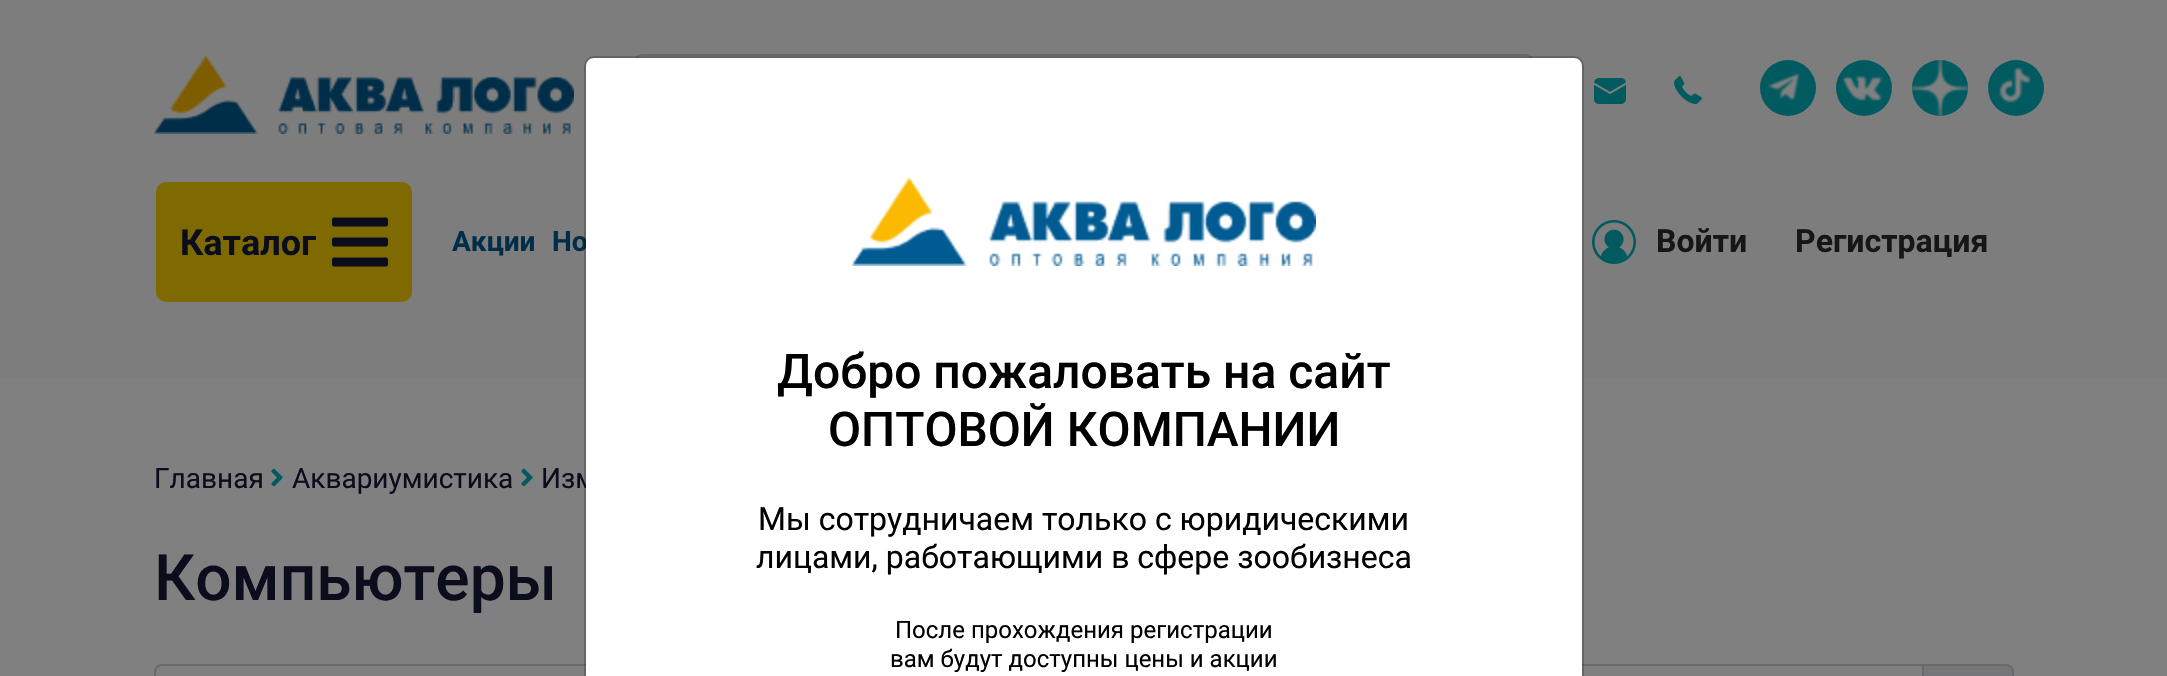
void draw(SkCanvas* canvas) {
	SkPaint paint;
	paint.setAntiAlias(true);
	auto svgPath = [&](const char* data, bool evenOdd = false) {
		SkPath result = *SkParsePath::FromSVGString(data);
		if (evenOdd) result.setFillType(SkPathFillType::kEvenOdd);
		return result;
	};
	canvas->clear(0xff808080);
	paint.setColor(0xff7d7d7d);
	canvas->drawRect(SkRect::MakeXYWH(0, 0, 2167, 378), paint);
	canvas->drawImageRect(SkImages::DeferredFromEncodedData(SkData::MakeFromFileName("img1.png")), SkRect::MakeXYWH(154, 56, 420, 78), SkSamplingOptions());
	paint.setColor(0xff808080);
	canvas->drawPath(svgPath("M1434 54H1526C1530.5 54 1534 57.5 1534 62V130C1534 134.5 1530.5 138 1526 138H1434Z"), paint);
	paint.setColor(0xff676a6d);
	canvas->drawPath(svgPath("M1434 54H1526C1530 54 1534 58 1534 62V130C1534 134 1530 138 1526 138H1434ZM1434 56H1526C1529 56 1532 59 1532 62V130C1532 133 1529 136 1526 136H1434Z", true), paint);
	paint.setColor(0xff808080);
	canvas->drawPath(svgPath("M642 54H1436V138H642C637.5 138 634 134.5 634 130V62C634 57.5 637.5 54 642 54Z"), paint);
	paint.setColor(0xff676a6d);
	canvas->drawPath(svgPath("M642 54H1436V138H642C638 138 634 134 634 130V62C634 58 638 54 642 54ZM642 56H1436V136H642C639 136 636 133 636 130V62C636 59 639 56 642 56Z", true), paint);
	canvas->drawImageRect(SkImages::DeferredFromEncodedData(SkData::MakeFromFileName("img2.png")), SkRect::MakeXYWH(1594, 78, 32, 26), SkSamplingOptions());
	canvas->drawImageRect(SkImages::DeferredFromEncodedData(SkData::MakeFromFileName("img3.png")), SkRect::MakeXYWH(1674, 76, 28, 28), SkSamplingOptions());
	paint.setColor(0xff005a5f);
	canvas->drawCircle(1788, 88, 28, paint);
	canvas->drawImageRect(SkImages::DeferredFromEncodedData(SkData::MakeFromFileName("img4.png")), SkRect::MakeXYWH(1767, 73, 34, 28), SkSamplingOptions());
	canvas->drawCircle(1864, 88, 28, paint);
	canvas->drawImageRect(SkImages::DeferredFromEncodedData(SkData::MakeFromFileName("img5.png")), SkRect::MakeXYWH(1842, 75, 50, 26), SkSamplingOptions());
	canvas->drawCircle(1940, 88, 28, paint);
	canvas->drawImageRect(SkImages::DeferredFromEncodedData(SkData::MakeFromFileName("img6.png")), SkRect::MakeXYWH(1912, 60, 56, 56), SkSamplingOptions());
	canvas->drawCircle(2016, 88, 28, paint);
	canvas->drawImageRect(SkImages::DeferredFromEncodedData(SkData::MakeFromFileName("img7.png")), SkRect::MakeXYWH(1988, 67, 43, 36), SkSamplingOptions());
	paint.setColor(0xff7e6a00);
	canvas->drawRoundRect(SkRect::MakeXYWH(156, 182, 256, 120), 10, 10, paint);
	SkFont f1(fontMgr->matchFamilyStyle("Roboto", SkFontStyle::Bold()), 36);
	f1.setSubpixel(true);
	paint.setColor(0xff0b0d1d);
	canvas->drawString("Каталог", 180, 255, f1, paint);
	canvas->drawImageRect(SkImages::DeferredFromEncodedData(SkData::MakeFromFileName("img8.png")), SkRect::MakeXYWH(332, 217, 56, 50), SkSamplingOptions());
	SkFont f2(fontMgr->matchFamilyStyle("Roboto", SkFontStyle::Bold()), 28);
	f2.setSubpixel(true);
	paint.setColor(0xff002e49);
	canvas->drawString("Акции", 452, 251, f2, paint);
	canvas->drawString("Но", 552, 251, f2, paint);
	canvas->drawImageRect(SkImages::DeferredFromEncodedData(SkData::MakeFromFileName("img9.png")), SkRect::MakeXYWH(1592, 220, 44, 44), SkSamplingOptions());
	SkFont f3(fontMgr->matchFamilyStyle("Roboto", SkFontStyle::Bold()), 32);
	f3.setSubpixel(true);
	paint.setColor(0xff161616);
	canvas->drawString("Войти", 1656, 252, f3, paint);
	canvas->drawString("Регистрация", 1795, 252, f3, paint);
	SkFont f4(fontMgr->matchFamilyStyle("Roboto", SkFontStyle::Normal()), 28);
	f4.setSubpixel(true);
	paint.setColor(0xff0b0d1d);
	canvas->drawString("Главная", 154, 488, f4, paint);
	canvas->drawImageRect(SkImages::DeferredFromEncodedData(SkData::MakeFromFileName("img10.png")), SkRect::MakeXYWH(271, 468, 12, 19), SkSamplingOptions());
	canvas->drawString("Аквариумистика", 292, 488, f4, paint);
	canvas->drawImageRect(SkImages::DeferredFromEncodedData(SkData::MakeFromFileName("img10.png")), SkRect::MakeXYWH(521, 468, 12, 19), SkSamplingOptions());
	canvas->drawString("Изм", 541, 488, f4, paint);
	SkFont f5(fontMgr->matchFamilyStyle("Roboto", SkFontStyle(500, SkFontStyle::kNormal_Width, SkFontStyle::kUpright_Slant)), 64);
	f5.setSubpixel(true);
	canvas->drawString("Компьютеры", 154, 600, f5, paint);
	paint.setColor(0xff757678);
	canvas->drawPath(svgPath("M1923 665H2006C2010 665 2013 668 2013 672V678C2013 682 2010 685 2006 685H1923Z"), paint);
	paint.setStroke(true);
	paint.setStrokeWidth(2);
	paint.setColor(0xff676a6d);
	canvas->drawPath(svgPath("M1923 665H2006C2010 665 2013 668 2013 672V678C2013 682 2010 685 2006 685H1923Z"), paint);
	canvas->drawPath(svgPath("M162 665H1923V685H162C158 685 155 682 155 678V672C155 668 158 665 162 665Z"), paint);
	paint.setStroke(false);
	paint.setColor(0xffffffff);
	canvas->drawPath(svgPath("M594 58H1574C1578.5 58 1582 61.5 1582 66V676H586V66C586 61.5 589.5 58 594 58Z"), paint);
	paint.setStroke(true);
	paint.setColor(0x33000000);
	canvas->drawRoundRect(SkRect::MakeXYWH(585, 57, 998, 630), 9, 9, paint);
	canvas->drawImageRect(SkImages::DeferredFromEncodedData(SkData::MakeFromFileName("img11.png")), SkRect::MakeXYWH(852, 178, 464, 88), SkSamplingOptions());
	SkFont f6(fontMgr->matchFamilyStyle("Roboto", SkFontStyle(500, SkFontStyle::kNormal_Width, SkFontStyle::kUpright_Slant)), 48);
	f6.setSubpixel(true);
	paint.setStroke(false);
	paint.setColor(0xff000000);
	canvas->drawString("Добро пожаловать на сайт", 777, 388, f6, paint);
	canvas->drawString("ОПТОВОЙ КОМПАНИИ", 828, 446, f6, paint);
	SkFont f7(fontMgr->matchFamilyStyle("Roboto", SkFontStyle::Normal()), 32);
	f7.setSubpixel(true);
	canvas->drawString("Мы сотрудничаем только с юридическими", 758, 530, f7, paint);
	canvas->drawString("лицами, работающими в сфере зообизнеса", 756, 568, f7, paint);
	SkFont f8(fontMgr->matchFamilyStyle("Roboto", SkFontStyle::Normal()), 24);
	f8.setSubpixel(true);
	canvas->drawString("После прохождения регистрации", 895, 638, f8, paint);
	canvas->drawString("вам будут доступны цены и акции", 890, 667, f8, paint);
}
